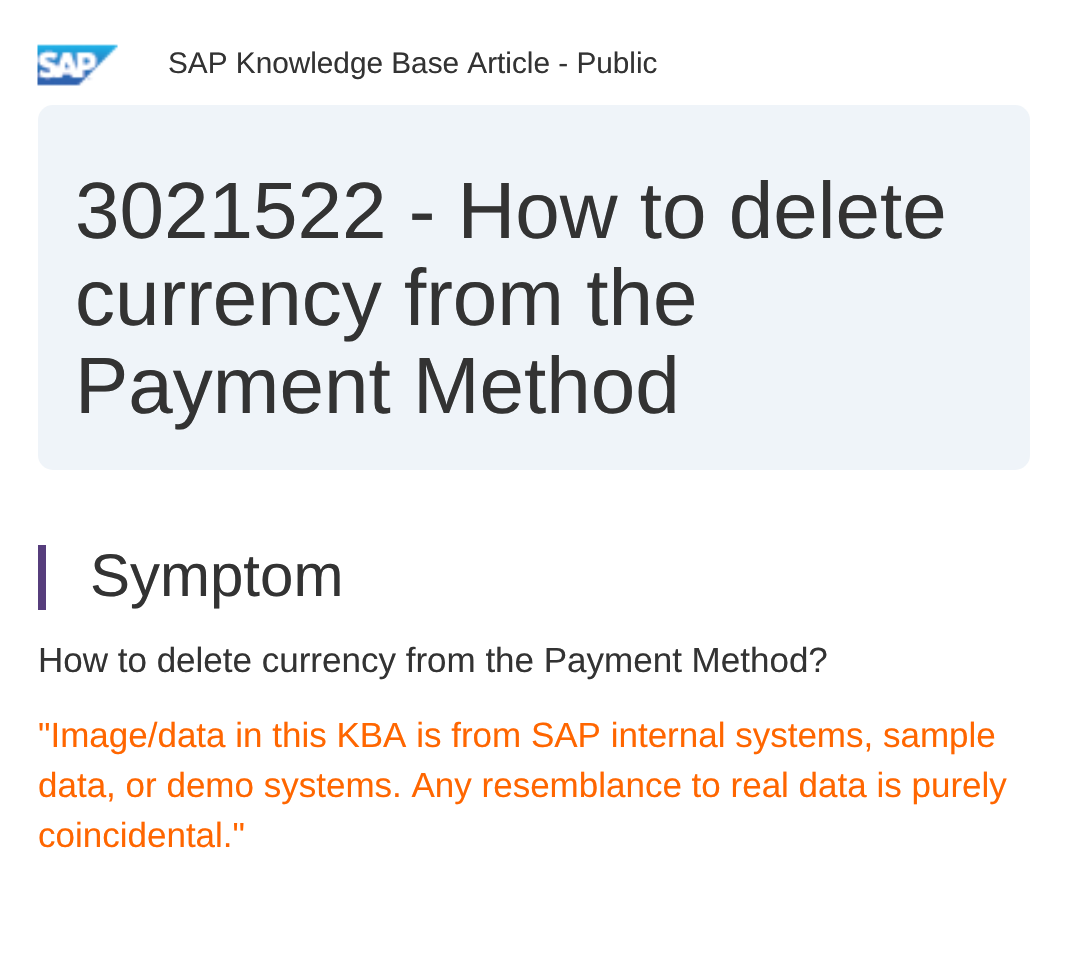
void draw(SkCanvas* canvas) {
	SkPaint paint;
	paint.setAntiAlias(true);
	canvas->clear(0xffffffff);
	canvas->drawImageRect(SkImages::DeferredFromEncodedData(SkData::MakeFromFileName("img1.png")), SkRect::MakeXYWH(37, 44, 81, 42), SkSamplingOptions());
	SkFont f1(fontMgr->matchFamilyStyle("Liberation Sans", SkFontStyle::Normal()), 29.75);
	f1.setSubpixel(true);
	paint.setColor(0xff333333);
	canvas->drawString("SAP Knowledge Base Article - Public", 168, 73, f1, paint);
	paint.setColor(0xffeff4f9);
	canvas->drawRoundRect(SkRect::MakeXYWH(38, 105, 992, 365), 15, 15, paint);
	SkFont f2(fontMgr->matchFamilyStyle("Liberation Sans", SkFontStyle::Normal()), 80);
	f2.setSubpixel(true);
	paint.setColor(0xff333333);
	canvas->drawString("3021522 - How to delete", 75, 238, f2, paint);
	canvas->drawString("currency from the", 75, 325, f2, paint);
	canvas->drawString("Payment Method", 75, 413, f2, paint);
	paint.setColor(0xff563d7c);
	canvas->drawRect(SkRect::MakeXYWH(38, 545, 8, 65), paint);
	SkFont f3(fontMgr->matchFamilyStyle("Liberation Sans", SkFontStyle::Normal()), 60);
	f3.setSubpixel(true);
	paint.setColor(0xff333333);
	canvas->drawString("Symptom", 90, 596, f3, paint);
	SkFont f4(fontMgr->matchFamilyStyle("Liberation Sans", SkFontStyle::Normal()), 35);
	f4.setSubpixel(true);
	canvas->drawString("How to delete currency from the Payment Method?", 38, 672, f4, paint);
	paint.setColor(0xffff6600);
	canvas->drawString("\"Image/data in this KBA is from SAP internal systems, sample", 38, 747, f4, paint);
	canvas->drawString("data, or demo systems. Any resemblance to real data is purely", 38, 797, f4, paint);
	canvas->drawString("coincidental.\"", 38, 847, f4, paint);
}
